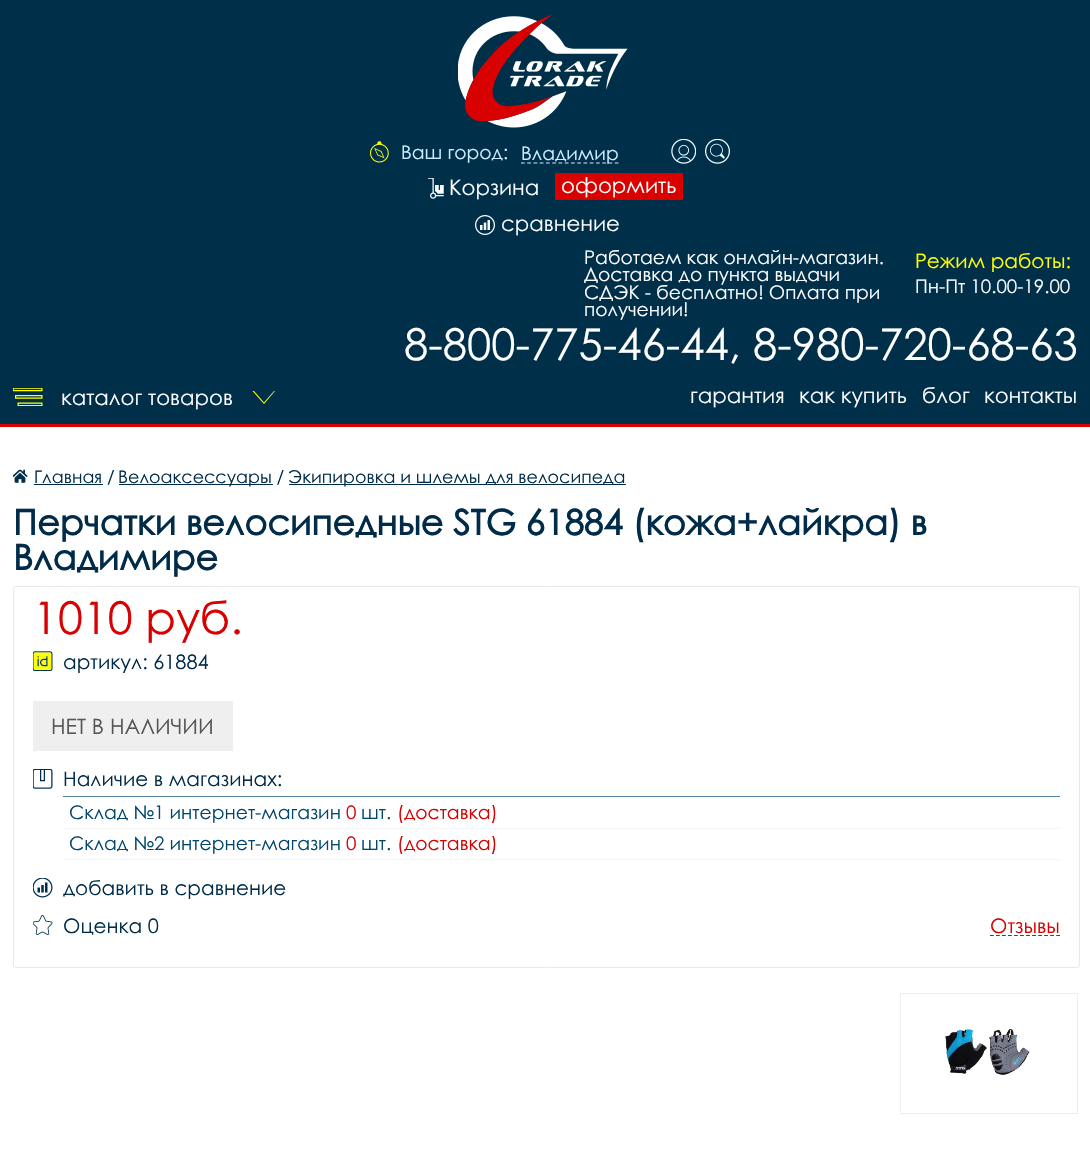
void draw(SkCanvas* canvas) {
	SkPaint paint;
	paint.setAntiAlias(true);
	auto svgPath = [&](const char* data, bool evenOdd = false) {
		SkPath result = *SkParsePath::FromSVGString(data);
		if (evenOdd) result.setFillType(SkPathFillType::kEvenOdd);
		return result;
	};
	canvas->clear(0xffffffff);
	paint.setColor(0xff002f4a);
	canvas->drawRect(SkRect::MakeXYWH(0, 0, 1090, 424), paint);
	paint.setColor(0xffd90000);
	canvas->drawRect(SkRect::MakeXYWH(0, 424, 1090, 3), paint);
	canvas->drawImageRect(SkImages::DeferredFromEncodedData(SkData::MakeFromFileName("img1.png")), SkRect::MakeXYWH(458, 15, 170, 113), SkSamplingOptions());
	canvas->drawImageRect(SkImages::DeferredFromEncodedData(SkData::MakeFromFileName("img2.png")), SkRect::MakeXYWH(370, 141, 19, 22), SkSamplingOptions());
	SkFont f1(fontMgr->matchFamilyStyle("Century Gothic", SkFontStyle::Normal()), 18.75);
	f1.setSubpixel(true);
	paint.setColor(0xffcdecff);
	canvas->drawString("Ваш город:", 401, 159, f1, paint);
	paint.setStroke(true);
	paint.setStrokeWidth(1.2);
	paint.setPathEffect(SkDashPathEffect::Make({{3.75f, 2.5f}}, 0));
	canvas->drawPath(svgPath("M521 163H619"), paint);
	paint.setPathEffect(nullptr);
	paint.setStroke(false);
	canvas->drawString("Владимир", 521, 160, f1, paint);
	canvas->drawImageRect(SkImages::DeferredFromEncodedData(SkData::MakeFromFileName("img3.png")), SkRect::MakeXYWH(671, 139, 25, 25), SkSamplingOptions());
	canvas->drawImageRect(SkImages::DeferredFromEncodedData(SkData::MakeFromFileName("img4.png")), SkRect::MakeXYWH(705, 139, 25, 25), SkSamplingOptions());
	canvas->drawImageRect(SkImages::DeferredFromEncodedData(SkData::MakeFromFileName("img5.png")), SkRect::MakeXYWH(428, 178, 16, 21), SkSamplingOptions());
	SkFont f2(fontMgr->matchFamilyStyle("Century Gothic", SkFontStyle::Normal()), 21.25);
	f2.setSubpixel(true);
	paint.setColor(0xffffffff);
	canvas->drawString("Корзина", 449, 195, f2, paint);
	paint.setColor(0xffd90000);
	canvas->drawRect(SkRect::MakeXYWH(555, 173, 128, 27), paint);
	paint.setColor(0xffffffff);
	canvas->drawString("оформить", 561, 193, f2, paint);
	canvas->drawImageRect(SkImages::DeferredFromEncodedData(SkData::MakeFromFileName("img6.png")), SkRect::MakeXYWH(475, 215, 20, 20), SkSamplingOptions());
	canvas->drawString("сравнение", 501, 231, f2, paint);
	canvas->drawString("Работаем как онлайн-магазин.", 584, 264, f1, paint);
	canvas->drawString("Доставка до пункта выдачи", 584, 281, f1, paint);
	canvas->drawString("СДЭК - бесплатно! Оплата при", 584, 299, f1, paint);
	canvas->drawString("получении!", 584, 316, f1, paint);
	SkFont f3(fontMgr->matchFamilyStyle("Century Gothic", SkFontStyle::Normal()), 20);
	f3.setSubpixel(true);
	paint.setColor(0xffffff00);
	canvas->drawString("Режим работы:", 915, 268, f3, paint);
	paint.setColor(0xffffffff);
	canvas->drawString("Пн-Пт 10.00-19.00", 915, 293, f1, paint);
	SkFont f4(fontMgr->matchFamilyStyle("Century Gothic", SkFontStyle::Normal()), 43.75);
	f4.setSubpixel(true);
	canvas->drawString("8-800-775-46-44, 8-980-720-68-63", 404, 360, f4, paint);
	canvas->drawImageRect(SkImages::DeferredFromEncodedData(SkData::MakeFromFileName("img7.png")), SkRect::MakeXYWH(13, 388, 30, 18), SkSamplingOptions());
	canvas->drawString("каталог товаров", 61, 405, f2, paint);
	paint.setColor(0xffffff00);
	canvas->drawPath(svgPath("M275 391H274L264 402.5L254 391H252.5L264 404Z", true), paint);
	paint.setColor(0xffffffff);
	canvas->drawString("гарантия", 690, 403, f2, paint);
	canvas->drawString("как купить", 799, 403, f2, paint);
	canvas->drawString("блог", 922, 403, f2, paint);
	canvas->drawString("контакты", 984, 403, f2, paint);
	canvas->drawImageRect(SkImages::DeferredFromEncodedData(SkData::MakeFromFileName("img8.png")), SkRect::MakeXYWH(13, 469, 15, 14), SkSamplingOptions());
	paint.setColor(0xff002c4a);
	canvas->drawRect(SkRect::MakeXYWH(34, 484, 69, 1), paint);
	SkFont f5(fontMgr->matchFamilyStyle("Century Gothic", SkFontStyle::Normal()), 17.5);
	f5.setSubpixel(true);
	canvas->drawString("Главная /", 34, 483, f5, paint);
	canvas->drawRect(SkRect::MakeXYWH(119, 484, 154, 1), paint);
	canvas->drawString("Велоаксессуары /", 118, 483, f5, paint);
	canvas->drawRect(SkRect::MakeXYWH(289, 484, 337, 1), paint);
	canvas->drawString("Экипировка и шлемы для велосипеда", 288, 483, f5, paint);
	SkFont f6(fontMgr->matchFamilyStyle("Century Gothic", SkFontStyle::Bold()), 35);
	f6.setSubpixel(true);
	canvas->drawString("Перчатки велосипедные STG 61884 (кожа+лайкра) в", 13, 535, f6, paint);
	canvas->drawString("Владимире", 13, 570, f6, paint);
	paint.setStroke(true);
	paint.setStrokeWidth(1);
	paint.setColor(0xffe9e9e9);
	canvas->drawRoundRect(SkRect::MakeXYWH(13.5, 586.5, 1066, 381), 2, 2, paint);
	SkFont f7(fontMgr->matchFamilyStyle("Century Gothic", SkFontStyle::Normal()), 45);
	f7.setSubpixel(true);
	paint.setStroke(false);
	paint.setColor(0xffd80000);
	canvas->drawString("1010 руб.", 33, 634, f7, paint);
	canvas->drawImageRect(SkImages::DeferredFromEncodedData(SkData::MakeFromFileName("img9.png")), SkRect::MakeXYWH(33, 651, 20, 20), SkSamplingOptions());
	paint.setColor(0xff002c4a);
	canvas->drawString("артикул: 61884", 63, 669, f3, paint);
	paint.setColor(0xffefefef);
	canvas->drawRect(SkRect::MakeXYWH(33, 701, 200, 50), paint);
	paint.setColor(0xff555555);
	canvas->drawString("НЕТ В НАЛИЧИИ", 51, 734, f2, paint);
	canvas->drawImageRect(SkImages::DeferredFromEncodedData(SkData::MakeFromFileName("img10.png")), SkRect::MakeXYWH(33, 769, 20, 20), SkSamplingOptions());
	paint.setColor(0xff5584a0);
	canvas->drawRect(SkRect::MakeXYWH(63, 796, 997, 1), paint);
	paint.setColor(0xff002c4a);
	canvas->drawString("Наличие в магазинах:", 63, 786, f3, paint);
	paint.setColor(0xfff5f5f5);
	canvas->drawRect(SkRect::MakeXYWH(63, 828, 997, 1), paint);
	paint.setColor(0xff004670);
	canvas->drawString("Склад №1 интернет-магазин", 69, 819, f1, paint);
	paint.setColor(0xffd80000);
	canvas->drawString("0", 346, 819, f1, paint);
	paint.setColor(0xff004670);
	canvas->drawString("шт.", 361, 819, f1, paint);
	paint.setColor(0xffd80000);
	canvas->drawString("(доставка)", 397, 819, f1, paint);
	paint.setColor(0xfff5f5f5);
	canvas->drawRect(SkRect::MakeXYWH(63, 859, 997, 1), paint);
	paint.setColor(0xff004670);
	canvas->drawString("Склад №2 интернет-магазин", 69, 850, f1, paint);
	paint.setColor(0xffd80000);
	canvas->drawString("0", 346, 850, f1, paint);
	paint.setColor(0xff004670);
	canvas->drawString("шт.", 361, 850, f1, paint);
	paint.setColor(0xffd80000);
	canvas->drawString("(доставка)", 397, 850, f1, paint);
	canvas->drawImageRect(SkImages::DeferredFromEncodedData(SkData::MakeFromFileName("img11.png")), SkRect::MakeXYWH(33, 878, 20, 20), SkSamplingOptions());
	paint.setColor(0xff002c4a);
	canvas->drawString("добавить в сравнение", 63, 895, f3, paint);
	canvas->drawImageRect(SkImages::DeferredFromEncodedData(SkData::MakeFromFileName("img12.png")), SkRect::MakeXYWH(33, 915, 20, 20), SkSamplingOptions());
	canvas->drawString("Оценка 0", 63, 933, f3, paint);
	paint.setStroke(true);
	paint.setStrokeWidth(1.2);
	paint.setColor(0xffd90000);
	paint.setPathEffect(SkDashPathEffect::Make({{3.75f, 2.27f}}, 0));
	canvas->drawPath(svgPath("M990 935.5H1060"), paint);
	paint.setPathEffect(nullptr);
	paint.setStroke(false);
	paint.setColor(0xffd80000);
	canvas->drawString("Отзывы", 990, 933, f3, paint);
	paint.setStroke(true);
	paint.setStrokeWidth(1);
	paint.setColor(0xffeeeeee);
	canvas->drawRect(SkRect::MakeXYWH(900.5, 993.5, 177, 120), paint);
	canvas->drawImageRect(SkImages::DeferredFromEncodedData(SkData::MakeFromFileName("img13.png")), SkRect::MakeXYWH(945, 1028, 85, 47), SkSamplingOptions());
}
